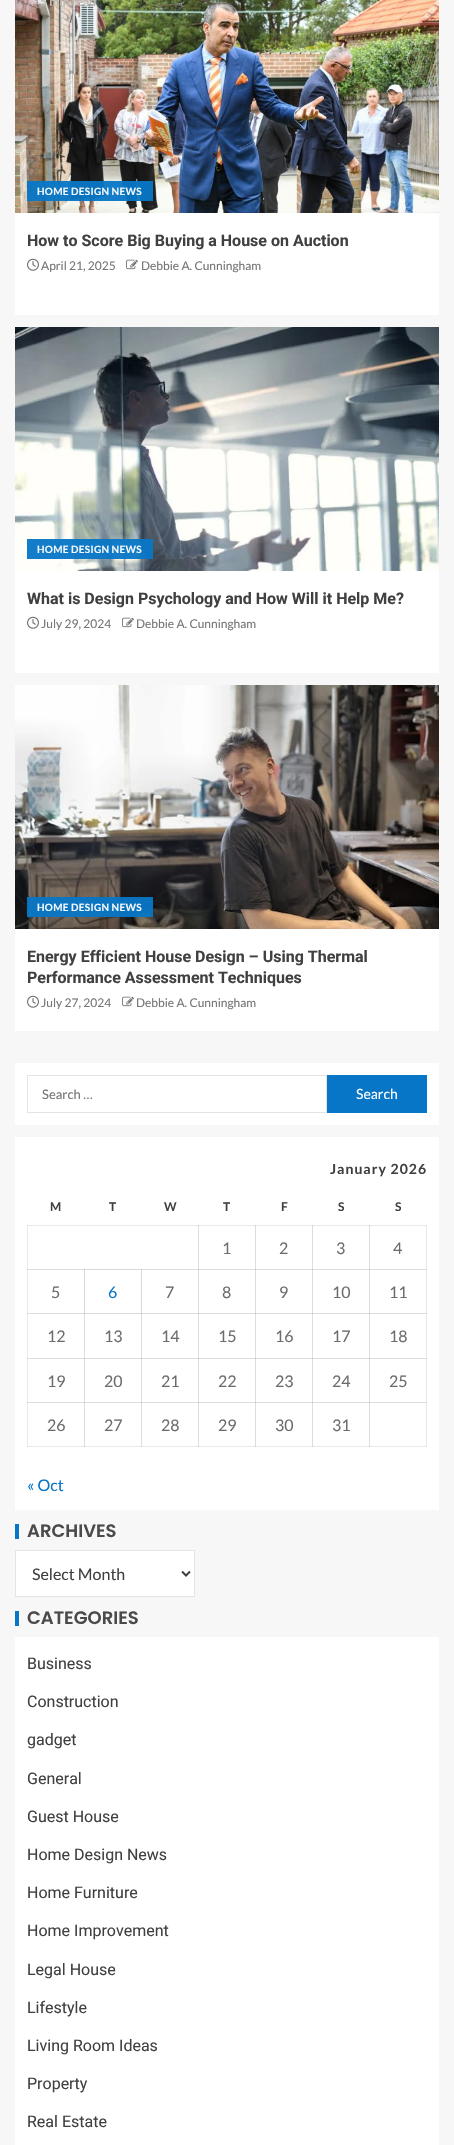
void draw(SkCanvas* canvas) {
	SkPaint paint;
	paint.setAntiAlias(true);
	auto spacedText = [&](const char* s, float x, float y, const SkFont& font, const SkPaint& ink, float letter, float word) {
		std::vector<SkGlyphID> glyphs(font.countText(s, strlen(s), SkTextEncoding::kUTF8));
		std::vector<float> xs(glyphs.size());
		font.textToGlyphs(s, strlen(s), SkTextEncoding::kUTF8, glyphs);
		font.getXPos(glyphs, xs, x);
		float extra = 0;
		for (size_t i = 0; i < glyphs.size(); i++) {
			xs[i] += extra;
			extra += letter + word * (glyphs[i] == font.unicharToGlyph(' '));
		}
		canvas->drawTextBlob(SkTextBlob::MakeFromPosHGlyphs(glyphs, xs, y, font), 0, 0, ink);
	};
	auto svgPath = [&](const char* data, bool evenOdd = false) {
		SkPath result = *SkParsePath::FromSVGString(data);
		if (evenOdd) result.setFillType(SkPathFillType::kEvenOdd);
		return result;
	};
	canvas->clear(0xfff7f7f7);
	canvas->drawImageRect(SkImages::DeferredFromEncodedData(SkData::MakeFromFileName("img1.png")), SkRect::MakeXYWH(15, 0, 424, 213), SkSamplingOptions());
	SkFont f1(fontMgr->matchFamilyStyle("Lato", SkFontStyle::Bold()), 12);
	f1.setSubpixel(true);
	paint.setColor(0xffc0bab4);
	canvas->drawString("5 min read", 40, 6, f1, paint);
	paint.setColor(0xf20776c6);
	canvas->drawRect(SkRect::MakeXYWH(27, 181, 126, 20), paint);
	SkFont f2(fontMgr->matchFamilyStyle("Lato", SkFontStyle::Bold()), 10);
	f2.setSubpixel(true);
	paint.setColor(0xfff3f8fc);
	spacedText("HOME DESIGN NEWS", 37, 195, f2, paint, 0.3, 0);
	paint.setColor(0xffffffff);
	canvas->drawRect(SkRect::MakeXYWH(15, 213, 424, 102), paint);
	SkFont f3(fontMgr->matchFamilyStyle("Roboto", SkFontStyle::Bold()), 16);
	f3.setSubpixel(true);
	paint.setColor(0xff404040);
	canvas->drawString("How to Score Big Buying a House on Auction", 27, 246, f3, paint);
	canvas->drawImageRect(SkImages::DeferredFromEncodedData(SkData::MakeFromFileName("img2.png")), SkRect::MakeXYWH(27, 258, 12, 13), SkSamplingOptions());
	SkFont f4(fontMgr->matchFamilyStyle("Lato", SkFontStyle::Normal()), 12);
	f4.setSubpixel(true);
	paint.setColor(0xff757575);
	canvas->drawString("April 21, 2025", 41, 270, f4, paint);
	canvas->drawImageRect(SkImages::DeferredFromEncodedData(SkData::MakeFromFileName("img3.png")), SkRect::MakeXYWH(126, 259, 12, 11), SkSamplingOptions());
	canvas->drawString("Debbie A. Cunningham", 141, 270, f4, paint);
	canvas->drawImageRect(SkImages::DeferredFromEncodedData(SkData::MakeFromFileName("img4.png")), SkRect::MakeXYWH(15, 327, 424, 244), SkSamplingOptions());
	paint.setColor(0xf20776c6);
	canvas->drawRect(SkRect::MakeXYWH(27, 539, 126, 20), paint);
	paint.setColor(0xfff3f8fc);
	spacedText("HOME DESIGN NEWS", 37, 553, f2, paint, 0.3, 0);
	paint.setColor(0xffffffff);
	canvas->drawRect(SkRect::MakeXYWH(15, 571, 424, 102), paint);
	paint.setColor(0xff404040);
	canvas->drawString("What is Design Psychology and How Will it Help Me?", 27, 604, f3, paint);
	canvas->drawImageRect(SkImages::DeferredFromEncodedData(SkData::MakeFromFileName("img2.png")), SkRect::MakeXYWH(27, 616, 12, 13), SkSamplingOptions());
	paint.setColor(0xff757575);
	canvas->drawString("July 29, 2024", 41, 628, f4, paint);
	canvas->drawImageRect(SkImages::DeferredFromEncodedData(SkData::MakeFromFileName("img3.png")), SkRect::MakeXYWH(122, 617, 12, 11), SkSamplingOptions());
	canvas->drawString("Debbie A. Cunningham", 136, 628, f4, paint);
	canvas->drawImageRect(SkImages::DeferredFromEncodedData(SkData::MakeFromFileName("img5.png")), SkRect::MakeXYWH(15, 685, 424, 244), SkSamplingOptions());
	paint.setColor(0xf20776c6);
	canvas->drawRect(SkRect::MakeXYWH(27, 897, 126, 20), paint);
	paint.setColor(0xfff3f8fc);
	spacedText("HOME DESIGN NEWS", 37, 911, f2, paint, 0.3, 0);
	paint.setColor(0xffffffff);
	canvas->drawRect(SkRect::MakeXYWH(15, 929, 424, 102), paint);
	paint.setColor(0xff404040);
	canvas->drawString("Energy Efficient House Design – Using Thermal", 27, 962, f3, paint);
	canvas->drawString("Performance Assessment Techniques", 27, 983, f3, paint);
	canvas->drawImageRect(SkImages::DeferredFromEncodedData(SkData::MakeFromFileName("img2.png")), SkRect::MakeXYWH(27, 995, 12, 13), SkSamplingOptions());
	paint.setColor(0xff757575);
	canvas->drawString("July 27, 2024", 41, 1007, f4, paint);
	canvas->drawImageRect(SkImages::DeferredFromEncodedData(SkData::MakeFromFileName("img3.png")), SkRect::MakeXYWH(122, 996, 12, 11), SkSamplingOptions());
	canvas->drawString("Debbie A. Cunningham", 136, 1007, f4, paint);
	paint.setColor(0xffffffff);
	canvas->drawRect(SkRect::MakeXYWH(15, 1063, 424, 62), paint);
	paint.setStroke(true);
	paint.setStrokeWidth(1);
	paint.setColor(0xffe4e4e4);
	canvas->drawRect(SkRect::MakeXYWH(27.5, 1075.5, 299, 37), paint);
	SkFont f5(fontMgr->matchFamilyStyle("Lato", SkFontStyle::Normal()), 13);
	f5.setSubpixel(true);
	paint.setStroke(false);
	paint.setColor(0xff757575);
	canvas->drawString("Search …", 42, 1099, f5, paint);
	paint.setColor(0xff0776c6);
	canvas->drawRect(SkRect::MakeXYWH(327, 1075, 100, 38), paint);
	SkFont f6(fontMgr->matchFamilyStyle("Lato", SkFontStyle::Normal()), 14);
	f6.setSubpixel(true);
	paint.setColor(0xffffffff);
	canvas->drawString("Search", 356, 1099, f6, paint);
	canvas->drawRect(SkRect::MakeXYWH(15, 1137, 424, 373), paint);
	paint.setColor(0xffeaeaea);
	canvas->drawRect(SkRect::MakeXYWH(27, 1225, 1, 222), paint);
	canvas->drawRect(SkRect::MakeXYWH(27, 1225, 172, 1), paint);
	paint.setColor(0xffdddddd);
	canvas->drawRect(SkRect::MakeXYWH(27, 1225, 1, 1), paint);
	canvas->drawRect(SkRect::MakeXYWH(198, 1225, 1, 45), paint);
	paint.setColor(0xffeaeaea);
	canvas->drawRect(SkRect::MakeXYWH(198, 1225, 58, 1), paint);
	paint.setColor(0xffd0d0d0);
	canvas->drawRect(SkRect::MakeXYWH(198, 1225, 1, 1), paint);
	paint.setColor(0xffdddddd);
	canvas->drawRect(SkRect::MakeXYWH(255, 1225, 1, 45), paint);
	paint.setColor(0xffeaeaea);
	canvas->drawRect(SkRect::MakeXYWH(255, 1225, 58, 1), paint);
	paint.setColor(0xffd0d0d0);
	canvas->drawRect(SkRect::MakeXYWH(255, 1225, 1, 1), paint);
	paint.setColor(0xffdddddd);
	canvas->drawRect(SkRect::MakeXYWH(312, 1225, 1, 45), paint);
	paint.setColor(0xffeaeaea);
	canvas->drawRect(SkRect::MakeXYWH(312, 1225, 58, 1), paint);
	paint.setColor(0xffd0d0d0);
	canvas->drawRect(SkRect::MakeXYWH(312, 1225, 1, 1), paint);
	paint.setColor(0xffdddddd);
	canvas->drawRect(SkRect::MakeXYWH(369, 1225, 1, 45), paint);
	paint.setColor(0xffeaeaea);
	canvas->drawRect(SkRect::MakeXYWH(426, 1225, 1, 178), paint);
	paint.setColor(0xffdddddd);
	canvas->drawRect(SkRect::MakeXYWH(27, 1269, 58, 1), paint);
	paint.setColor(0xffd0d0d0);
	canvas->drawRect(SkRect::MakeXYWH(27, 1269, 1, 1), paint);
	paint.setColor(0xffd9d9d9);
	canvas->drawRect(SkRect::MakeXYWH(84, 1269, 1, 45), paint);
	canvas->drawRect(SkRect::MakeXYWH(84, 1269, 58, 1), paint);
	paint.setColor(0xffcbcbcb);
	canvas->drawRect(SkRect::MakeXYWH(84, 1269, 1, 1), paint);
	paint.setColor(0xffd9d9d9);
	canvas->drawRect(SkRect::MakeXYWH(141, 1269, 1, 45), paint);
	paint.setColor(0xffdddddd);
	canvas->drawRect(SkRect::MakeXYWH(141, 1269, 58, 1), paint);
	paint.setColor(0xffcccccc);
	canvas->drawRect(SkRect::MakeXYWH(141, 1269, 1, 1), paint);
	paint.setColor(0xffdddddd);
	canvas->drawRect(SkRect::MakeXYWH(198, 1269, 1, 45), paint);
	canvas->drawRect(SkRect::MakeXYWH(198, 1269, 58, 1), paint);
	paint.setColor(0xffc9c9c9);
	canvas->drawRect(SkRect::MakeXYWH(198, 1269, 1, 1), paint);
	paint.setColor(0xffdddddd);
	canvas->drawRect(SkRect::MakeXYWH(255, 1269, 1, 45), paint);
	canvas->drawRect(SkRect::MakeXYWH(255, 1269, 58, 1), paint);
	paint.setColor(0xffc9c9c9);
	canvas->drawRect(SkRect::MakeXYWH(255, 1269, 1, 1), paint);
	paint.setColor(0xffdddddd);
	canvas->drawRect(SkRect::MakeXYWH(312, 1269, 1, 45), paint);
	canvas->drawRect(SkRect::MakeXYWH(312, 1269, 58, 1), paint);
	paint.setColor(0xffc9c9c9);
	canvas->drawRect(SkRect::MakeXYWH(312, 1269, 1, 1), paint);
	paint.setColor(0xffdddddd);
	canvas->drawRect(SkRect::MakeXYWH(369, 1269, 1, 45), paint);
	canvas->drawRect(SkRect::MakeXYWH(27, 1313, 58, 1), paint);
	paint.setColor(0xffd0d0d0);
	canvas->drawRect(SkRect::MakeXYWH(27, 1313, 1, 1), paint);
	paint.setColor(0xffdddddd);
	canvas->drawRect(SkRect::MakeXYWH(84, 1313, 1, 46), paint);
	paint.setColor(0xffd9d9d9);
	canvas->drawRect(SkRect::MakeXYWH(84, 1313, 58, 1), paint);
	paint.setColor(0xffc9c9c9);
	canvas->drawRect(SkRect::MakeXYWH(84, 1313, 1, 1), paint);
	paint.setColor(0xffdddddd);
	canvas->drawRect(SkRect::MakeXYWH(141, 1313, 1, 46), paint);
	canvas->drawRect(SkRect::MakeXYWH(141, 1313, 58, 1), paint);
	paint.setColor(0xffc9c9c9);
	canvas->drawRect(SkRect::MakeXYWH(141, 1313, 1, 1), paint);
	paint.setColor(0xffdddddd);
	canvas->drawRect(SkRect::MakeXYWH(198, 1313, 1, 46), paint);
	canvas->drawRect(SkRect::MakeXYWH(198, 1313, 58, 1), paint);
	paint.setColor(0xffc9c9c9);
	canvas->drawRect(SkRect::MakeXYWH(198, 1313, 1, 1), paint);
	paint.setColor(0xffdddddd);
	canvas->drawRect(SkRect::MakeXYWH(255, 1313, 1, 46), paint);
	canvas->drawRect(SkRect::MakeXYWH(255, 1313, 58, 1), paint);
	paint.setColor(0xffc9c9c9);
	canvas->drawRect(SkRect::MakeXYWH(255, 1313, 1, 1), paint);
	paint.setColor(0xffdddddd);
	canvas->drawRect(SkRect::MakeXYWH(312, 1313, 1, 46), paint);
	canvas->drawRect(SkRect::MakeXYWH(312, 1313, 58, 1), paint);
	paint.setColor(0xffc9c9c9);
	canvas->drawRect(SkRect::MakeXYWH(312, 1313, 1, 1), paint);
	paint.setColor(0xffdddddd);
	canvas->drawRect(SkRect::MakeXYWH(369, 1313, 1, 46), paint);
	canvas->drawRect(SkRect::MakeXYWH(27, 1358, 58, 1), paint);
	paint.setColor(0xffd0d0d0);
	canvas->drawRect(SkRect::MakeXYWH(27, 1358, 1, 1), paint);
	paint.setColor(0xffdddddd);
	canvas->drawRect(SkRect::MakeXYWH(84, 1358, 1, 45), paint);
	canvas->drawRect(SkRect::MakeXYWH(84, 1358, 58, 1), paint);
	paint.setColor(0xffc9c9c9);
	canvas->drawRect(SkRect::MakeXYWH(84, 1358, 1, 1), paint);
	paint.setColor(0xffdddddd);
	canvas->drawRect(SkRect::MakeXYWH(141, 1358, 1, 45), paint);
	canvas->drawRect(SkRect::MakeXYWH(141, 1358, 58, 1), paint);
	paint.setColor(0xffc9c9c9);
	canvas->drawRect(SkRect::MakeXYWH(141, 1358, 1, 1), paint);
	paint.setColor(0xffdddddd);
	canvas->drawRect(SkRect::MakeXYWH(198, 1358, 1, 45), paint);
	canvas->drawRect(SkRect::MakeXYWH(198, 1358, 58, 1), paint);
	paint.setColor(0xffc9c9c9);
	canvas->drawRect(SkRect::MakeXYWH(198, 1358, 1, 1), paint);
	paint.setColor(0xffdddddd);
	canvas->drawRect(SkRect::MakeXYWH(255, 1358, 1, 45), paint);
	canvas->drawRect(SkRect::MakeXYWH(255, 1358, 58, 1), paint);
	paint.setColor(0xffc9c9c9);
	canvas->drawRect(SkRect::MakeXYWH(255, 1358, 1, 1), paint);
	paint.setColor(0xffdddddd);
	canvas->drawRect(SkRect::MakeXYWH(312, 1358, 1, 45), paint);
	canvas->drawRect(SkRect::MakeXYWH(312, 1358, 58, 1), paint);
	paint.setColor(0xffc9c9c9);
	canvas->drawRect(SkRect::MakeXYWH(312, 1358, 1, 1), paint);
	paint.setColor(0xffdddddd);
	canvas->drawRect(SkRect::MakeXYWH(369, 1358, 1, 45), paint);
	paint.setColor(0xffeaeaea);
	canvas->drawRect(SkRect::MakeXYWH(27, 1446, 58, 1), paint);
	paint.setColor(0xffe0e0e0);
	canvas->drawRect(SkRect::MakeXYWH(27, 1446, 1, 1), paint);
	paint.setColor(0xffdddddd);
	canvas->drawRect(SkRect::MakeXYWH(27, 1402, 58, 1), paint);
	paint.setColor(0xffd1d1d1);
	canvas->drawRect(SkRect::MakeXYWH(27, 1402, 1, 1), paint);
	paint.setColor(0xffdddddd);
	canvas->drawRect(SkRect::MakeXYWH(84, 1402, 1, 45), paint);
	paint.setColor(0xffeaeaea);
	canvas->drawRect(SkRect::MakeXYWH(84, 1446, 58, 1), paint);
	paint.setColor(0xffd1d1d1);
	canvas->drawRect(SkRect::MakeXYWH(84, 1446, 1, 1), paint);
	paint.setColor(0xffdddddd);
	canvas->drawRect(SkRect::MakeXYWH(84, 1402, 58, 1), paint);
	paint.setColor(0xffc9c9c9);
	canvas->drawRect(SkRect::MakeXYWH(84, 1402, 1, 1), paint);
	paint.setColor(0xffdddddd);
	canvas->drawRect(SkRect::MakeXYWH(141, 1402, 1, 45), paint);
	paint.setColor(0xffeaeaea);
	canvas->drawRect(SkRect::MakeXYWH(141, 1446, 58, 1), paint);
	paint.setColor(0xffd1d1d1);
	canvas->drawRect(SkRect::MakeXYWH(141, 1446, 1, 1), paint);
	paint.setColor(0xffdddddd);
	canvas->drawRect(SkRect::MakeXYWH(141, 1402, 58, 1), paint);
	paint.setColor(0xffc9c9c9);
	canvas->drawRect(SkRect::MakeXYWH(141, 1402, 1, 1), paint);
	paint.setColor(0xffdddddd);
	canvas->drawRect(SkRect::MakeXYWH(198, 1402, 1, 45), paint);
	paint.setColor(0xffeaeaea);
	canvas->drawRect(SkRect::MakeXYWH(198, 1446, 58, 1), paint);
	paint.setColor(0xffd1d1d1);
	canvas->drawRect(SkRect::MakeXYWH(198, 1446, 1, 1), paint);
	paint.setColor(0xffdddddd);
	canvas->drawRect(SkRect::MakeXYWH(198, 1402, 58, 1), paint);
	paint.setColor(0xffc9c9c9);
	canvas->drawRect(SkRect::MakeXYWH(198, 1402, 1, 1), paint);
	paint.setColor(0xffdddddd);
	canvas->drawRect(SkRect::MakeXYWH(255, 1402, 1, 45), paint);
	paint.setColor(0xffeaeaea);
	canvas->drawRect(SkRect::MakeXYWH(255, 1446, 58, 1), paint);
	paint.setColor(0xffd1d1d1);
	canvas->drawRect(SkRect::MakeXYWH(255, 1446, 1, 1), paint);
	paint.setColor(0xffdddddd);
	canvas->drawRect(SkRect::MakeXYWH(255, 1402, 58, 1), paint);
	paint.setColor(0xffc9c9c9);
	canvas->drawRect(SkRect::MakeXYWH(255, 1402, 1, 1), paint);
	paint.setColor(0xffdddddd);
	canvas->drawRect(SkRect::MakeXYWH(312, 1402, 1, 45), paint);
	paint.setColor(0xffeaeaea);
	canvas->drawRect(SkRect::MakeXYWH(312, 1446, 58, 1), paint);
	paint.setColor(0xffd1d1d1);
	canvas->drawRect(SkRect::MakeXYWH(312, 1446, 1, 1), paint);
	paint.setColor(0xffdddddd);
	canvas->drawRect(SkRect::MakeXYWH(312, 1402, 58, 1), paint);
	paint.setColor(0xffc9c9c9);
	canvas->drawRect(SkRect::MakeXYWH(312, 1402, 1, 1), paint);
	paint.setColor(0xffdddddd);
	canvas->drawRect(SkRect::MakeXYWH(369, 1402, 1, 45), paint);
	paint.setColor(0xffeaeaea);
	canvas->drawRect(SkRect::MakeXYWH(369, 1446, 58, 1), paint);
	paint.setColor(0xffd1d1d1);
	canvas->drawRect(SkRect::MakeXYWH(369, 1446, 1, 1), paint);
	paint.setColor(0xffeaeaea);
	canvas->drawRect(SkRect::MakeXYWH(426, 1402, 1, 45), paint);
	paint.setColor(0xffe0e0e0);
	canvas->drawRect(SkRect::MakeXYWH(426, 1446, 1, 1), paint);
	SkFont f7(fontMgr->matchFamilyStyle("Lato", SkFontStyle::Bold()), 14);
	f7.setSubpixel(true);
	paint.setColor(0xff404040);
	spacedText("January 2026", 330, 1174, f7, paint, 1, 0);
	canvas->drawString("M", 50, 1211, f1, paint);
	canvas->drawString("T", 109, 1211, f1, paint);
	canvas->drawString("W", 164, 1211, f1, paint);
	canvas->drawString("T", 223, 1211, f1, paint);
	canvas->drawString("F", 281, 1211, f1, paint);
	canvas->drawString("S", 338, 1211, f1, paint);
	canvas->drawString("S", 395, 1211, f1, paint);
	SkFont f8(fontMgr->matchFamilyStyle("Lato", SkFontStyle::Normal()), 16);
	f8.setSubpixel(true);
	paint.setColor(0xff6c6c6c);
	canvas->drawString("1", 222, 1254, f8, paint);
	canvas->drawString("2", 279, 1254, f8, paint);
	canvas->drawString("3", 336, 1254, f8, paint);
	paint.setColor(0xffeaeaea);
	canvas->drawRect(SkRect::MakeXYWH(369, 1225, 58, 1), paint);
	paint.setColor(0xffd0d0d0);
	canvas->drawRect(SkRect::MakeXYWH(369, 1225, 1, 1), paint);
	paint.setColor(0xffdddddd);
	canvas->drawRect(SkRect::MakeXYWH(426, 1225, 1, 1), paint);
	paint.setColor(0xff6c6c6c);
	canvas->drawString("4", 393, 1254, f8, paint);
	canvas->drawString("5", 51, 1298, f8, paint);
	paint.setColor(0xff0776c6);
	canvas->drawString("6", 108, 1298, f8, paint);
	paint.setColor(0xff6c6c6c);
	canvas->drawString("7", 165, 1298, f8, paint);
	canvas->drawString("8", 222, 1298, f8, paint);
	canvas->drawString("9", 279, 1298, f8, paint);
	canvas->drawString("10", 332, 1298, f8, paint);
	paint.setColor(0xffdddddd);
	canvas->drawRect(SkRect::MakeXYWH(369, 1269, 58, 1), paint);
	paint.setColor(0xffc9c9c9);
	canvas->drawRect(SkRect::MakeXYWH(369, 1269, 1, 1), paint);
	paint.setColor(0xffd0d0d0);
	canvas->drawRect(SkRect::MakeXYWH(426, 1269, 1, 1), paint);
	paint.setColor(0xff6c6c6c);
	canvas->drawString("11", 389, 1298, f8, paint);
	canvas->drawString("12", 47, 1342, f8, paint);
	canvas->drawString("13", 104, 1342, f8, paint);
	canvas->drawString("14", 161, 1342, f8, paint);
	canvas->drawString("15", 218, 1342, f8, paint);
	canvas->drawString("16", 275, 1342, f8, paint);
	canvas->drawString("17", 332, 1342, f8, paint);
	paint.setColor(0xffdddddd);
	canvas->drawRect(SkRect::MakeXYWH(369, 1313, 58, 1), paint);
	paint.setColor(0xffc9c9c9);
	canvas->drawRect(SkRect::MakeXYWH(369, 1313, 1, 1), paint);
	paint.setColor(0xffd0d0d0);
	canvas->drawRect(SkRect::MakeXYWH(426, 1313, 1, 1), paint);
	paint.setColor(0xff6c6c6c);
	canvas->drawString("18", 389, 1342, f8, paint);
	canvas->drawString("19", 47, 1387, f8, paint);
	canvas->drawString("20", 104, 1387, f8, paint);
	canvas->drawString("21", 161, 1387, f8, paint);
	canvas->drawString("22", 218, 1387, f8, paint);
	canvas->drawString("23", 275, 1387, f8, paint);
	canvas->drawString("24", 332, 1387, f8, paint);
	paint.setColor(0xffdddddd);
	canvas->drawRect(SkRect::MakeXYWH(369, 1358, 58, 1), paint);
	paint.setColor(0xffc9c9c9);
	canvas->drawRect(SkRect::MakeXYWH(369, 1358, 1, 1), paint);
	paint.setColor(0xffd0d0d0);
	canvas->drawRect(SkRect::MakeXYWH(426, 1358, 1, 1), paint);
	paint.setColor(0xff6c6c6c);
	canvas->drawString("25", 389, 1387, f8, paint);
	paint.setColor(0xffdddddd);
	canvas->drawRect(SkRect::MakeXYWH(369, 1402, 58, 1), paint);
	paint.setColor(0xffc9c9c9);
	canvas->drawRect(SkRect::MakeXYWH(369, 1402, 1, 1), paint);
	paint.setColor(0xffd1d1d1);
	canvas->drawRect(SkRect::MakeXYWH(426, 1402, 1, 1), paint);
	paint.setColor(0xff6c6c6c);
	canvas->drawString("26", 47, 1431, f8, paint);
	canvas->drawString("27", 104, 1431, f8, paint);
	canvas->drawString("28", 161, 1431, f8, paint);
	canvas->drawString("29", 218, 1431, f8, paint);
	canvas->drawString("30", 275, 1431, f8, paint);
	canvas->drawString("31", 332, 1431, f8, paint);
	paint.setColor(0xff0776c6);
	canvas->drawString("« Oct", 27, 1491, f8, paint);
	canvas->drawRect(SkRect::MakeXYWH(15, 1524, 4, 15), paint);
	SkFont f9(fontMgr->matchFamilyStyle("Poppins", SkFontStyle(600, SkFontStyle::kNormal_Width, SkFontStyle::kUpright_Slant)), 18);
	f9.setSubpixel(true);
	paint.setColor(0xff4a4a4a);
	canvas->drawString("ARCHIVES", 27, 1537, f9, paint);
	paint.setColor(0xffffffff);
	canvas->drawRect(SkRect::MakeXYWH(15.5, 1550.5, 179, 46), paint);
	paint.setStroke(true);
	paint.setColor(0xffe4e4e4);
	canvas->drawRect(SkRect::MakeXYWH(15.5, 1550.5, 179, 46), paint);
	paint.setStrokeWidth(2);
	paint.setColor(0xff404040);
	canvas->drawPath(svgPath("M182 1571.5L186 1575.5L190 1571.5"), paint);
	paint.setStroke(false);
	canvas->drawString("Select Month", 32, 1580, f8, paint);
	paint.setColor(0xff0776c6);
	canvas->drawRect(SkRect::MakeXYWH(15, 1611, 4, 15), paint);
	paint.setColor(0xff4a4a4a);
	canvas->drawString("CATEGORIES", 27, 1624, f9, paint);
	paint.setColor(0xffffffff);
	canvas->drawRect(SkRect::MakeXYWH(15, 1637, 424, 508), paint);
	SkFont f10(fontMgr->matchFamilyStyle("Roboto", SkFontStyle::Normal()), 16);
	f10.setSubpixel(true);
	paint.setColor(0xff404040);
	canvas->drawString("Business", 27, 1669, f10, paint);
	canvas->drawString("Construction", 27, 1707, f10, paint);
	canvas->drawString("gadget", 27, 1745, f10, paint);
	canvas->drawString("General", 27, 1784, f10, paint);
	canvas->drawString("Guest House", 27, 1822, f10, paint);
	canvas->drawString("Home Design News", 27, 1860, f10, paint);
	canvas->drawString("Home Furniture", 27, 1898, f10, paint);
	canvas->drawString("Home Improvement", 27, 1936, f10, paint);
	canvas->drawString("Legal House", 27, 1975, f10, paint);
	canvas->drawString("Lifestyle", 27, 2013, f10, paint);
	canvas->drawString("Living Room Ideas", 27, 2051, f10, paint);
	canvas->drawString("Property", 27, 2089, f10, paint);
	canvas->drawString("Real Estate", 27, 2127, f10, paint);
}
